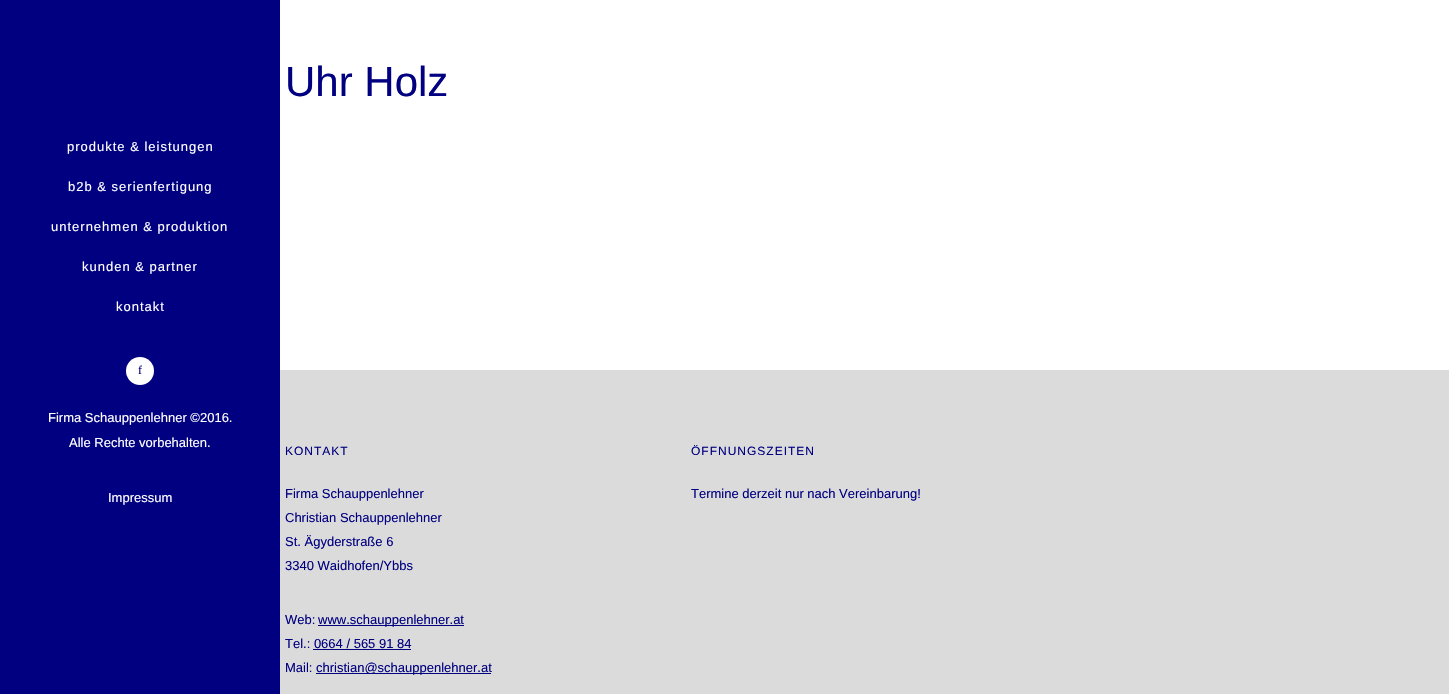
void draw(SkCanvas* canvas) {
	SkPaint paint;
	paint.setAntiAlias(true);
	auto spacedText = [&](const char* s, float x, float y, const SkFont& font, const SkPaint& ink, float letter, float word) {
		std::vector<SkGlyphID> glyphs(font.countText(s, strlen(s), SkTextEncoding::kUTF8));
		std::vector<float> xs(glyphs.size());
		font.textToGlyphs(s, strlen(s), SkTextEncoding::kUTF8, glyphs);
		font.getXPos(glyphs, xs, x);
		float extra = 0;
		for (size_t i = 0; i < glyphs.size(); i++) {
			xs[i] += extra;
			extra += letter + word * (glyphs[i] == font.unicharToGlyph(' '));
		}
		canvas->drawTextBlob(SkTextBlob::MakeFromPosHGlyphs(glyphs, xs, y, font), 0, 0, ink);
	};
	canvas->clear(0xffffffff);
	paint.setColor(0xff010080);
	canvas->drawRect(SkRect::MakeXYWH(0, 0, 280, 694), paint);
	SkFont f1(fontMgr->matchFamilyStyle("Liberation Sans", SkFontStyle::Normal()), 13);
	f1.setSubpixel(true);
	paint.setColor(0xffffffff);
	spacedText("produkte & leistungen", 67, 151, f1, paint, 1, 0);
	spacedText("b2b & serienfertigung", 68, 191, f1, paint, 1, 0);
	spacedText("unternehmen & produktion", 51, 231, f1, paint, 1, 0);
	spacedText("kunden & partner", 82, 271, f1, paint, 1, 0);
	spacedText("kontakt", 116, 311, f1, paint, 1, 0);
	canvas->drawCircle(140, 371, 14, paint);
	SkFont f2(fontMgr->matchFamilyStyle("Liberation Serif", SkFontStyle::Normal()), 12);
	f2.setSubpixel(true);
	paint.setColor(0xff010080);
	canvas->drawString("f", 138, 374, f2, paint);
	paint.setColor(0xffffffff);
	canvas->drawString("Firma Schauppenlehner ©2016.", 48, 422, f1, paint);
	canvas->drawString("Alle Rechte vorbehalten.", 69, 447, f1, paint);
	canvas->drawString("Impressum", 108, 502, f1, paint);
	SkFont f3(fontMgr->matchFamilyStyle("Liberation Sans", SkFontStyle::Normal()), 42);
	f3.setSubpixel(true);
	paint.setColor(0xff010080);
	canvas->drawString("Uhr Holz", 285, 96, f3, paint);
	paint.setColor(0xffdbdbdb);
	canvas->drawRect(SkRect::MakeXYWH(280, 370, 1169, 324), paint);
	SkFont f4(fontMgr->matchFamilyStyle("Liberation Sans", SkFontStyle::Normal()), 12);
	f4.setSubpixel(true);
	paint.setColor(0xff010080);
	spacedText("KONTAKT", 285, 455, f4, paint, 1, 0);
	canvas->drawString("Firma Schauppenlehner", 285, 498, f1, paint);
	canvas->drawString("Christian Schauppenlehner", 285, 522, f1, paint);
	canvas->drawString("St. Ägyderstraße 6", 285, 546, f1, paint);
	canvas->drawString("3340 Waidhofen/Ybbs", 285, 570, f1, paint);
	canvas->drawString("Web:", 285, 624, f1, paint);
	canvas->drawRect(SkRect::MakeXYWH(318, 625, 146, 1), paint);
	canvas->drawString("www.schauppenlehner.at", 318, 624, f1, paint);
	canvas->drawString("Tel.: 0664 / 565 91 84", 285, 648, f1, paint);
	canvas->drawRect(SkRect::MakeXYWH(313, 649, 98, 1), paint);
	canvas->drawString("Mail:", 285, 672, f1, paint);
	canvas->drawRect(SkRect::MakeXYWH(316, 673, 175, 1), paint);
	canvas->drawString("christian@schauppenlehner.at", 316, 672, f1, paint);
	spacedText("ÖFFNUNGSZEITEN", 691, 455, f4, paint, 1, 0);
	canvas->drawString("Termine derzeit nur nach Vereinbarung!", 691, 498, f1, paint);
}
